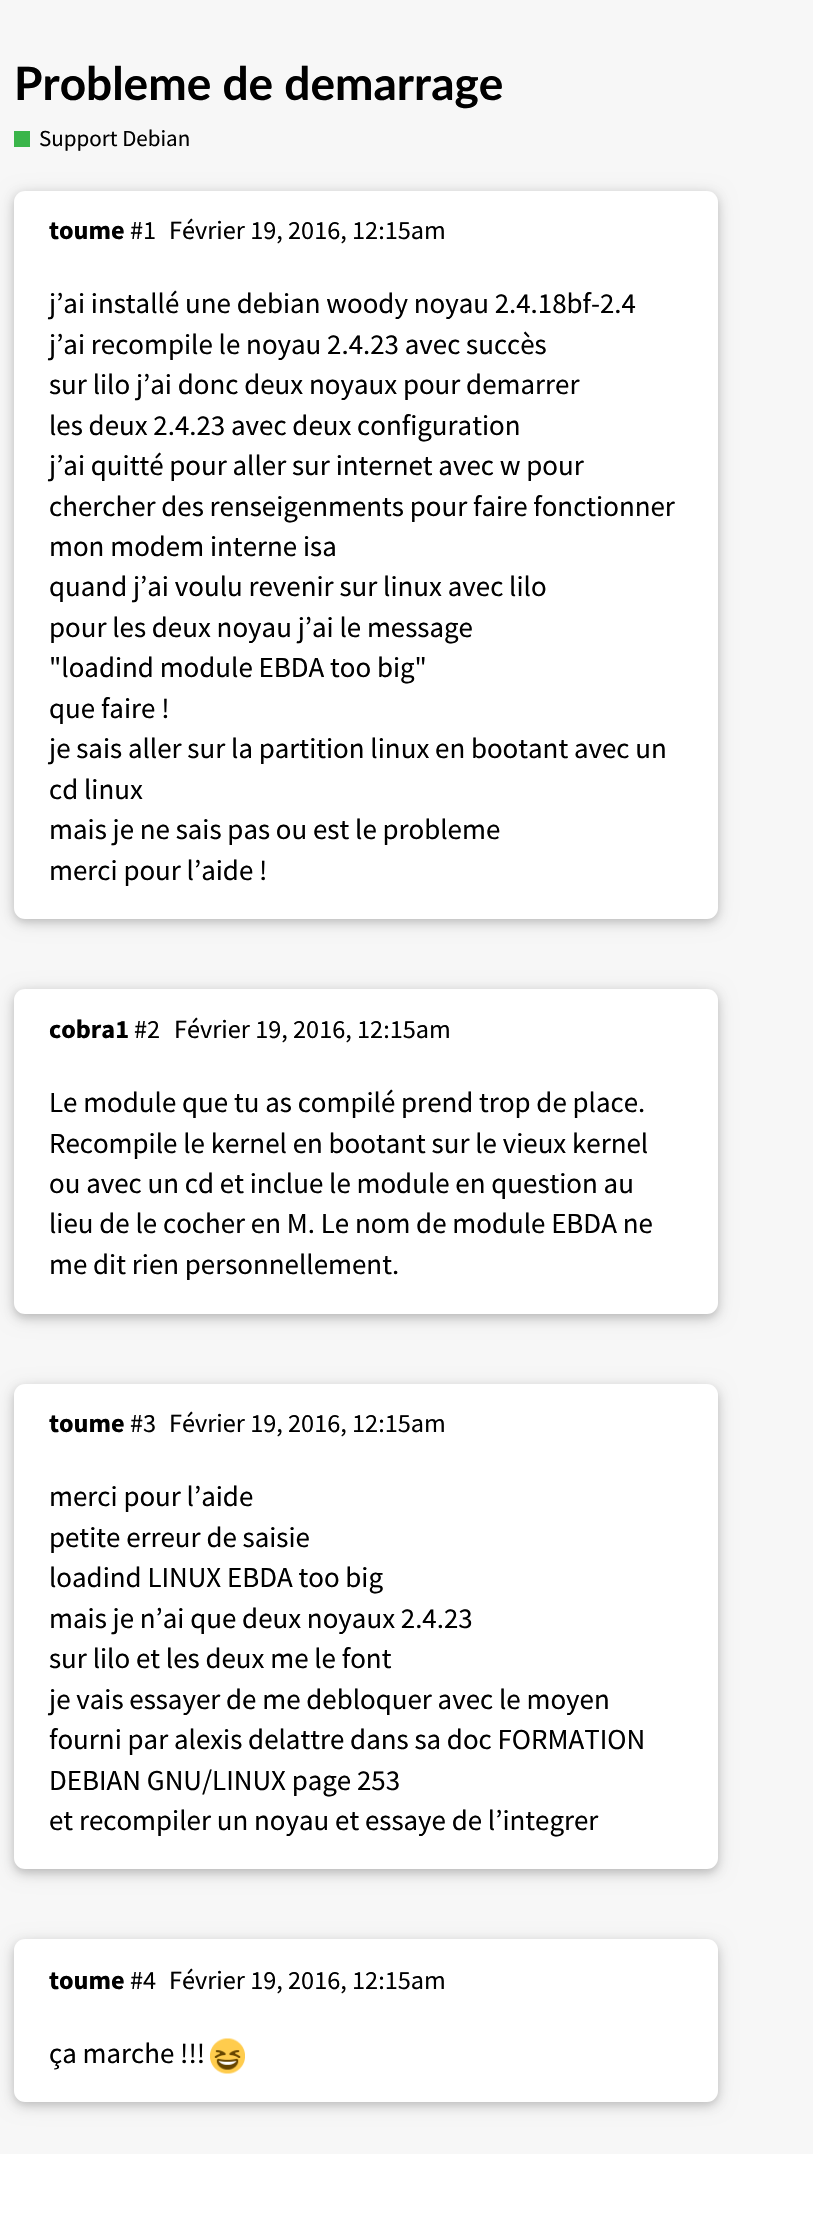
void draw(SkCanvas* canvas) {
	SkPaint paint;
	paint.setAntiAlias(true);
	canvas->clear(0xffffffff);
	paint.setColor(0xfff7f7f7);
	canvas->drawRect(SkRect::MakeXYWH(0, 0, 813, 2154), paint);
	SkFont f1(fontMgr->matchFamilyStyle("Lato", SkFontStyle::Bold()), 46);
	f1.setSubpixel(true);
	paint.setColor(0xff000000);
	canvas->drawString("Probleme de demarrage", 14, 100, f1, paint);
	paint.setColor(0xff3ab54a);
	canvas->drawRect(SkRect::MakeXYWH(14, 131, 16, 16), paint);
	SkFont f2(fontMgr->matchFamilyStyle("Source Sans Pro", SkFontStyle::Normal()), 23);
	f2.setSubpixel(true);
	paint.setColor(0xff000000);
	canvas->drawString("Support Debian", 39, 146, f2, paint);
	paint.setColor(0x1f000000);
	paint.setMaskFilter(SkMaskFilter::MakeBlur(kNormal_SkBlurStyle, 9));
	canvas->drawRoundRect(SkRect::MakeXYWH(14, 194, 704, 728), 11, 11, paint);
	paint.setMaskFilter(nullptr);
	paint.setColor(0x29000000);
	paint.setMaskFilter(SkMaskFilter::MakeBlur(kNormal_SkBlurStyle, 4.5));
	canvas->drawRoundRect(SkRect::MakeXYWH(14, 194, 704, 728), 11, 11, paint);
	paint.setMaskFilter(nullptr);
	paint.setColor(0xffffffff);
	canvas->drawRoundRect(SkRect::MakeXYWH(14, 191, 704, 728), 11, 11, paint);
	SkFont f3(fontMgr->matchFamilyStyle("Source Sans Pro", SkFontStyle::Bold()), 26.25);
	f3.setSubpixel(true);
	paint.setColor(0xff000000);
	canvas->drawString("toume", 49, 239, f3, paint);
	SkFont f4(fontMgr->matchFamilyStyle("Source Sans Pro", SkFontStyle::Normal()), 26.25);
	f4.setSubpixel(true);
	canvas->drawString("#1", 130, 239, f4, paint);
	canvas->drawString("Février 19, 2016, 12:15am", 169, 239, f4, paint);
	SkFont f5(fontMgr->matchFamilyStyle("Source Sans Pro", SkFontStyle::Normal()), 28.9);
	f5.setSubpixel(true);
	canvas->drawString("j’ai installé une debian woody noyau 2.4.18bf-2.4", 49, 313, f5, paint);
	canvas->drawString("j’ai recompile le noyau 2.4.23 avec succès", 49, 354, f5, paint);
	canvas->drawString("sur lilo j’ai donc deux noyaux pour demarrer", 49, 394, f5, paint);
	canvas->drawString("les deux 2.4.23 avec deux configuration", 49, 435, f5, paint);
	canvas->drawString("j’ai quitté pour aller sur internet avec w pour", 49, 475, f5, paint);
	canvas->drawString("chercher des renseigenments pour faire fonctionner", 49, 516, f5, paint);
	canvas->drawString("mon modem interne isa", 49, 556, f5, paint);
	canvas->drawString("quand j’ai voulu revenir sur linux avec lilo", 49, 596, f5, paint);
	canvas->drawString("pour les deux noyau j’ai le message", 49, 637, f5, paint);
	canvas->drawString("\"loadind module EBDA too big\"", 49, 677, f5, paint);
	canvas->drawString("que faire !", 49, 718, f5, paint);
	canvas->drawString("je sais aller sur la partition linux en bootant avec un", 49, 758, f5, paint);
	canvas->drawString("cd linux", 49, 799, f5, paint);
	canvas->drawString("mais je ne sais pas ou est le probleme", 49, 839, f5, paint);
	canvas->drawString("merci pour l’aide !", 49, 880, f5, paint);
	paint.setColor(0x1f000000);
	paint.setMaskFilter(SkMaskFilter::MakeBlur(kNormal_SkBlurStyle, 9));
	canvas->drawRoundRect(SkRect::MakeXYWH(14, 992, 704, 326), 11, 11, paint);
	paint.setMaskFilter(nullptr);
	paint.setColor(0x29000000);
	paint.setMaskFilter(SkMaskFilter::MakeBlur(kNormal_SkBlurStyle, 4.5));
	canvas->drawRoundRect(SkRect::MakeXYWH(14, 992, 704, 326), 11, 11, paint);
	paint.setMaskFilter(nullptr);
	paint.setColor(0xffffffff);
	canvas->drawRoundRect(SkRect::MakeXYWH(14, 989, 704, 325), 11, 11, paint);
	paint.setColor(0xff000000);
	canvas->drawString("cobra1", 49, 1038, f3, paint);
	canvas->drawString("#2", 134, 1038, f4, paint);
	canvas->drawString("Février 19, 2016, 12:15am", 174, 1038, f4, paint);
	canvas->drawString("Le module que tu as compilé prend trop de place.", 49, 1112, f5, paint);
	canvas->drawString("Recompile le kernel en bootant sur le vieux kernel", 49, 1153, f5, paint);
	canvas->drawString("ou avec un cd et inclue le module en question au", 49, 1193, f5, paint);
	canvas->drawString("lieu de le cocher en M. Le nom de module EBDA ne", 49, 1233, f5, paint);
	canvas->drawString("me dit rien personnellement.", 49, 1274, f5, paint);
	paint.setColor(0x1f000000);
	paint.setMaskFilter(SkMaskFilter::MakeBlur(kNormal_SkBlurStyle, 9));
	canvas->drawRoundRect(SkRect::MakeXYWH(14, 1388, 704, 485), 11, 11, paint);
	paint.setMaskFilter(nullptr);
	paint.setColor(0x29000000);
	paint.setMaskFilter(SkMaskFilter::MakeBlur(kNormal_SkBlurStyle, 4.5));
	canvas->drawRoundRect(SkRect::MakeXYWH(14, 1388, 704, 485), 11, 11, paint);
	paint.setMaskFilter(nullptr);
	paint.setColor(0xffffffff);
	canvas->drawRoundRect(SkRect::MakeXYWH(14, 1384, 704, 485), 11, 11, paint);
	paint.setColor(0xff000000);
	canvas->drawString("toume", 49, 1432, f3, paint);
	canvas->drawString("#3", 130, 1432, f4, paint);
	canvas->drawString("Février 19, 2016, 12:15am", 169, 1432, f4, paint);
	canvas->drawString("merci pour l’aide", 49, 1506, f5, paint);
	canvas->drawString("petite erreur de saisie", 49, 1547, f5, paint);
	canvas->drawString("loadind LINUX EBDA too big", 49, 1587, f5, paint);
	canvas->drawString("mais je n’ai que deux noyaux 2.4.23", 49, 1628, f5, paint);
	canvas->drawString("sur lilo et les deux me le font", 49, 1668, f5, paint);
	canvas->drawString("je vais essayer de me debloquer avec le moyen", 49, 1709, f5, paint);
	canvas->drawString("fourni par alexis delattre dans sa doc FORMATION", 49, 1749, f5, paint);
	canvas->drawString("DEBIAN GNU/LINUX page 253", 49, 1790, f5, paint);
	canvas->drawString("et recompiler un noyau et essaye de l’integrer", 49, 1830, f5, paint);
	paint.setColor(0x1f000000);
	paint.setMaskFilter(SkMaskFilter::MakeBlur(kNormal_SkBlurStyle, 9));
	canvas->drawRoundRect(SkRect::MakeXYWH(14, 1943, 704, 162), 11, 11, paint);
	paint.setMaskFilter(nullptr);
	paint.setColor(0x29000000);
	paint.setMaskFilter(SkMaskFilter::MakeBlur(kNormal_SkBlurStyle, 4.5));
	canvas->drawRoundRect(SkRect::MakeXYWH(14, 1943, 704, 162), 11, 11, paint);
	paint.setMaskFilter(nullptr);
	paint.setColor(0xffffffff);
	canvas->drawRoundRect(SkRect::MakeXYWH(14, 1939, 704, 163), 11, 11, paint);
	paint.setColor(0xff000000);
	canvas->drawString("toume", 49, 1989, f3, paint);
	canvas->drawString("#4", 130, 1989, f4, paint);
	canvas->drawString("Février 19, 2016, 12:15am", 169, 1989, f4, paint);
	canvas->drawString("ça marche !!!", 49, 2063, f5, paint);
	canvas->drawImageRect(SkImages::DeferredFromEncodedData(SkData::MakeFromFileName("img1.png")), SkRect::MakeXYWH(210, 2038, 35, 36), SkSamplingOptions());
}
